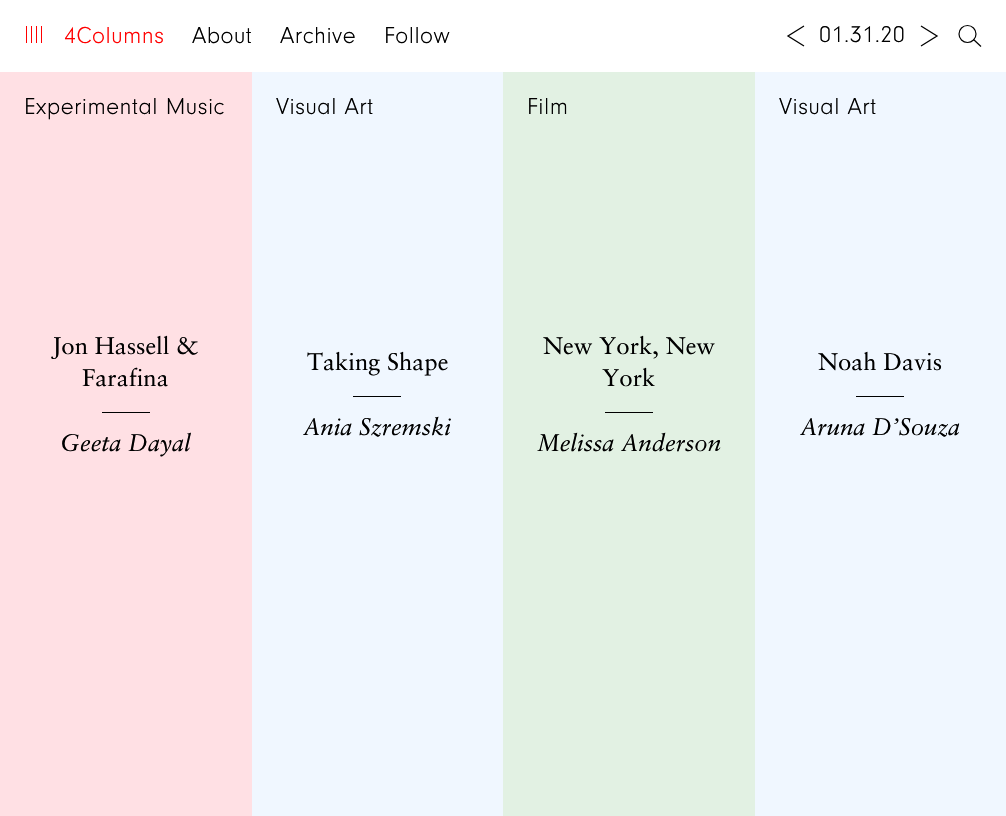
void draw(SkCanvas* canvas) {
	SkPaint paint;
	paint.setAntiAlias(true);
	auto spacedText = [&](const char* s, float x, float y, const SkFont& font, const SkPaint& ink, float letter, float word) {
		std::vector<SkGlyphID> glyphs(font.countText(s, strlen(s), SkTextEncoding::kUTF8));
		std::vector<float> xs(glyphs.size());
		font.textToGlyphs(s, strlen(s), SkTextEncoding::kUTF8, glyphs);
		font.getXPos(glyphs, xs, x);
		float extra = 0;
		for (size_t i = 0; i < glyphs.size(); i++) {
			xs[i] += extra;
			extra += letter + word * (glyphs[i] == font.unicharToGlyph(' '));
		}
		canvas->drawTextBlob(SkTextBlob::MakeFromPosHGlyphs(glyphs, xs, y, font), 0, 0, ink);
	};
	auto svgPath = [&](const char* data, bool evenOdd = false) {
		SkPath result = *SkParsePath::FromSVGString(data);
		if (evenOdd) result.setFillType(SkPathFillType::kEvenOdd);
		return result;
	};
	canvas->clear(0xffffe0e4);
	paint.setColor(0xffffffff);
	canvas->drawRect(SkRect::MakeXYWH(0, 0, 1006, 72), paint);
	paint.setColor(0xffff0000);
	canvas->drawRect(SkRect::MakeXYWH(41, 26, 1, 17), paint);
	canvas->drawRect(SkRect::MakeXYWH(36, 26, 1, 17), paint);
	canvas->drawRect(SkRect::MakeXYWH(31, 26, 1, 17), paint);
	canvas->drawRect(SkRect::MakeXYWH(26, 26, 1, 17), paint);
	SkFont f1(fontMgr->matchFamilyStyle("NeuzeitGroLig", SkFontStyle::Normal()), 24);
	f1.setSubpixel(true);
	spacedText("4Columns", 64, 43, f1, paint, 0.5, 0);
	paint.setColor(0xff000000);
	spacedText("About", 192, 43, f1, paint, 0.5, 0);
	spacedText("Archive", 280, 43, f1, paint, 0.5, 0);
	spacedText("Follow", 384, 43, f1, paint, 0.5, 0);
	paint.setStroke(true);
	paint.setStrokeWidth(1.3);
	canvas->drawPath(svgPath("M804 46L788 36L804 26"), paint);
	paint.setStroke(false);
	spacedText("01.31.20", 819, 42, f1, paint, 0.5, 0);
	paint.setStroke(true);
	canvas->drawPath(svgPath("M921 26L937 36L921 46"), paint);
	paint.setStrokeWidth(1.2);
	canvas->drawCircle(967.5, 34, 8.5, paint);
	canvas->drawPath(svgPath("M973.5 39.5L981 46.5"), paint);
	paint.setStroke(false);
	spacedText("Experimental Music", 24, 114, f1, paint, 0.5, 0);
	SkFont f2(fontMgr->matchFamilyStyle("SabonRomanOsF", SkFontStyle::Normal()), 24);
	f2.setSubpixel(true);
	canvas->drawString("Jon Hassell &", 52, 354, f2, paint);
	canvas->drawString("Farafina", 82, 386, f2, paint);
	canvas->drawPath(svgPath("M102 413V412H118V413ZM118 413V412H134V413ZM134 413V412H150V413Z"), paint);
	SkFont f3(fontMgr->matchFamilyStyle("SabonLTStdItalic", SkFontStyle::Normal()), 24);
	f3.setSubpixel(true);
	canvas->drawString("Geeta Dayal", 60, 451, f3, paint);
	paint.setColor(0xfff0f7ff);
	canvas->drawRect(SkRect::MakeXYWH(252, 72, 251, 744), paint);
	paint.setColor(0xff000000);
	spacedText("Visual Art", 276, 114, f1, paint, 0.5, 0);
	canvas->drawString("Taking Shape", 307, 370, f2, paint);
	canvas->drawPath(svgPath("M353 397V396H369V397ZM369 397V396H385V397ZM385 397V396H401V397Z"), paint);
	canvas->drawString("Ania Szremski", 303, 435, f3, paint);
	paint.setColor(0xffe2f1e3);
	canvas->drawRect(SkRect::MakeXYWH(503, 72, 252, 744), paint);
	paint.setColor(0xff000000);
	spacedText("Film", 527, 114, f1, paint, 0.5, 0);
	canvas->drawString("New York, New", 543, 354, f2, paint);
	canvas->drawString("York", 602, 386, f2, paint);
	canvas->drawPath(svgPath("M605 413V412H621V413ZM621 413V412H637V413ZM637 413V412H653V413Z"), paint);
	canvas->drawString("Melissa Anderson", 537, 451, f3, paint);
	paint.setColor(0xfff0f7ff);
	canvas->drawRect(SkRect::MakeXYWH(755, 72, 251, 744), paint);
	paint.setColor(0xff000000);
	spacedText("Visual Art", 779, 114, f1, paint, 0.5, 0);
	canvas->drawString("Noah Davis", 818, 370, f2, paint);
	canvas->drawPath(svgPath("M856 397V396H872V397ZM872 397V396H888V397ZM888 397V396H904V397Z"), paint);
	canvas->drawString("Aruna D’Souza", 800, 435, f3, paint);
}
